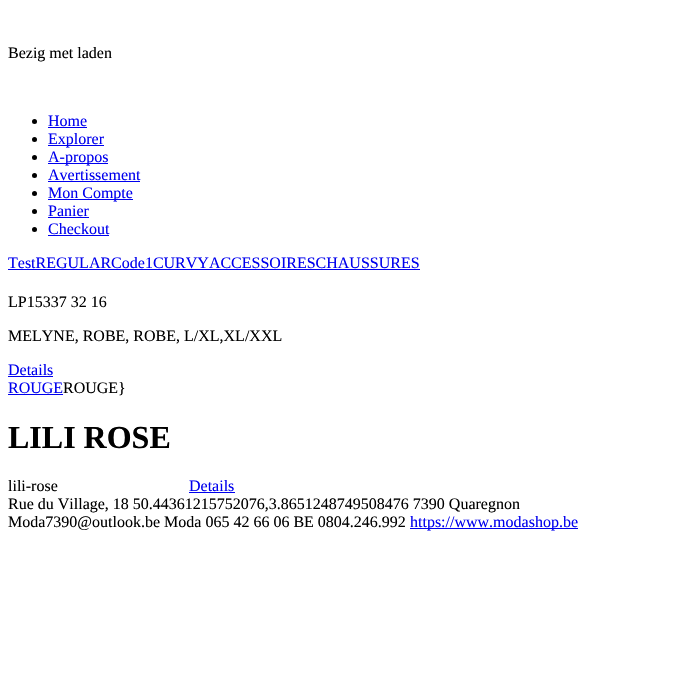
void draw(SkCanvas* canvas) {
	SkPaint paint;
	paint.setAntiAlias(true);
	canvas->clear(0xffffffff);
	SkFont f1(fontMgr->matchFamilyStyle("Liberation Serif", SkFontStyle::Normal()), 16);
	f1.setSubpixel(true);
	paint.setColor(0xff000000);
	canvas->drawString("Bezig met laden", 8, 58, f1, paint);
	canvas->drawCircle(34.5, 121.5, 2.5, paint);
	paint.setColor(0xff0000ee);
	canvas->drawString("Home", 48, 126, f1, paint);
	canvas->drawRect(SkRect::MakeXYWH(48, 127, 39, 1), paint);
	paint.setColor(0xff000000);
	canvas->drawCircle(34.5, 139.5, 2.5, paint);
	paint.setColor(0xff0000ee);
	canvas->drawRect(SkRect::MakeXYWH(48, 145, 56, 1), paint);
	canvas->drawString("Explorer", 48, 144, f1, paint);
	paint.setColor(0xff000000);
	canvas->drawCircle(34.5, 157.5, 2.5, paint);
	paint.setColor(0xff0000ee);
	canvas->drawRect(SkRect::MakeXYWH(48, 163, 60, 1), paint);
	canvas->drawString("A-propos", 48, 162, f1, paint);
	paint.setColor(0xff000000);
	canvas->drawCircle(34.5, 175.5, 2.5, paint);
	paint.setColor(0xff0000ee);
	canvas->drawString("Avertissement", 48, 180, f1, paint);
	canvas->drawRect(SkRect::MakeXYWH(48, 181, 92, 1), paint);
	paint.setColor(0xff000000);
	canvas->drawCircle(34.5, 193.5, 2.5, paint);
	paint.setColor(0xff0000ee);
	canvas->drawRect(SkRect::MakeXYWH(48, 199, 85, 1), paint);
	canvas->drawString("Mon Compte", 48, 198, f1, paint);
	paint.setColor(0xff000000);
	canvas->drawCircle(34.5, 211.5, 2.5, paint);
	paint.setColor(0xff0000ee);
	canvas->drawString("Panier", 48, 216, f1, paint);
	canvas->drawRect(SkRect::MakeXYWH(48, 217, 41, 1), paint);
	paint.setColor(0xff000000);
	canvas->drawCircle(34.5, 229.5, 2.5, paint);
	paint.setColor(0xff0000ee);
	canvas->drawString("Checkout", 48, 234, f1, paint);
	canvas->drawRect(SkRect::MakeXYWH(48, 235, 61, 1), paint);
	canvas->drawString("TestREGULARCode1CURVYACCESSOIRESCHAUSSURES", 8, 268, f1, paint);
	canvas->drawRect(SkRect::MakeXYWH(8, 269, 412, 1), paint);
	paint.setColor(0xff000000);
	canvas->drawString("LP15337 32 16", 8, 307, f1, paint);
	canvas->drawString("MELYNE, ROBE, ROBE, L/XL,XL/XXL", 8, 341, f1, paint);
	paint.setColor(0xff0000ee);
	canvas->drawString("Details", 8, 375, f1, paint);
	canvas->drawRect(SkRect::MakeXYWH(8, 376, 45, 1), paint);
	canvas->drawString("ROUGE", 8, 393, f1, paint);
	canvas->drawRect(SkRect::MakeXYWH(8, 394, 55, 1), paint);
	paint.setColor(0xff000000);
	canvas->drawString("ROUGE}", 63, 393, f1, paint);
	SkFont f2(fontMgr->matchFamilyStyle("Liberation Serif", SkFontStyle::Bold()), 32);
	f2.setSubpixel(true);
	canvas->drawString("LILI ROSE", 8, 448, f2, paint);
	canvas->drawString("lili-rose", 8, 491, f1, paint);
	paint.setColor(0xff0000ee);
	canvas->drawString("Details", 189, 491, f1, paint);
	canvas->drawRect(SkRect::MakeXYWH(189, 492, 46, 1), paint);
	paint.setColor(0xff000000);
	canvas->drawString("Rue du Village, 18 50.44361215752076,3.8651248749508476 7390 Quaregnon", 8, 509, f1, paint);
	canvas->drawString("Moda7390@outlook.be Moda 065 42 66 06 BE 0804.246.992", 8, 527, f1, paint);
	paint.setColor(0xff0000ee);
	canvas->drawRect(SkRect::MakeXYWH(410, 528, 168, 1), paint);
	canvas->drawString("https://www.modashop.be", 410, 527, f1, paint);
}
